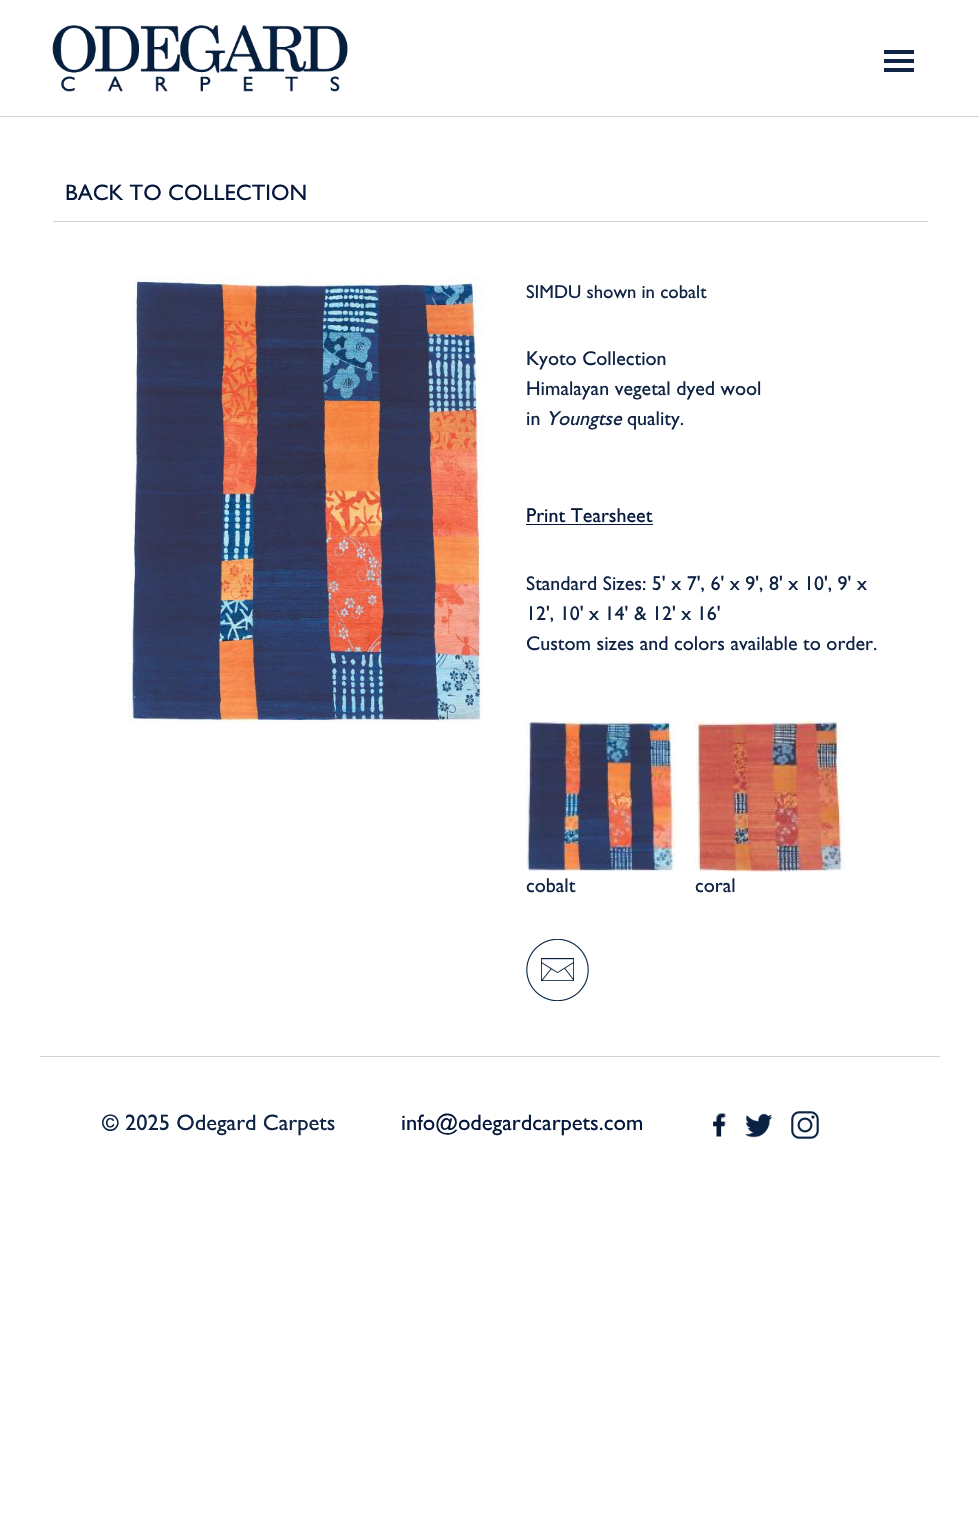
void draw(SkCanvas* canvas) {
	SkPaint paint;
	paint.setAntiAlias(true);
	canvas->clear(0xffffffff);
	paint.setColor(0xffd3d3d3);
	canvas->drawRect(SkRect::MakeXYWH(0, 116, 979, 1), paint);
	canvas->drawImageRect(SkImages::DeferredFromEncodedData(SkData::MakeFromFileName("img1.png")), SkRect::MakeXYWH(52, 25, 296, 67), SkSamplingOptions());
	paint.setColor(0xff0f2345);
	canvas->drawRect(SkRect::MakeXYWH(884, 50, 30, 4), paint);
	canvas->drawRect(SkRect::MakeXYWH(884, 59, 30, 4), paint);
	canvas->drawRect(SkRect::MakeXYWH(884, 68, 30, 4), paint);
	paint.setColor(0xffd3d3d3);
	canvas->drawRect(SkRect::MakeXYWH(53, 221, 875, 1), paint);
	SkFont f1(fontMgr->matchFamilyStyle("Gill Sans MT", SkFontStyle::Normal()), 22.5);
	f1.setSubpixel(true);
	paint.setColor(0xff05183b);
	canvas->drawString("BACK TO COLLECTION", 65, 200, f1, paint);
	canvas->drawImageRect(SkImages::DeferredFromEncodedData(SkData::MakeFromFileName("img2.png")), SkRect::MakeXYWH(127, 277, 356, 447), SkSamplingOptions());
	SkFont f2(fontMgr->matchFamilyStyle("Gill Sans MT", SkFontStyle::Normal()), 18.75);
	f2.setSubpixel(true);
	paint.setColor(0xff0f2345);
	canvas->drawString("SIMDU shown in cobalt", 526, 298, f2, paint);
	SkFont f3(fontMgr->matchFamilyStyle("Gill Sans MT", SkFontStyle::Normal()), 20);
	f3.setSubpixel(true);
	canvas->drawString("Kyoto Collection", 526, 365, f3, paint);
	canvas->drawString("Himalayan vegetal dyed wool", 526, 395, f3, paint);
	canvas->drawString("in", 526, 425, f3, paint);
	SkFont f4(fontMgr->matchFamilyStyle("Gill Sans MT", SkFontStyle::Italic()), 20);
	f4.setSubpixel(true);
	canvas->drawString("Youngtse", 546, 425, f4, paint);
	canvas->drawString("quality.", 627, 425, f3, paint);
	paint.setColor(0xff05183b);
	canvas->drawString("Print Tearsheet", 526, 522, f3, paint);
	canvas->drawRect(SkRect::MakeXYWH(526, 524, 127, 1), paint);
	paint.setColor(0xff0f2345);
	canvas->drawString("Standard Sizes: 5' x 7', 6' x 9', 8' x 10', 9' x", 526, 590, f3, paint);
	canvas->drawString("12', 10' x 14' & 12' x 16'", 526, 620, f3, paint);
	canvas->drawString("Custom sizes and colors available to order.", 526, 650, f3, paint);
	canvas->drawImageRect(SkImages::DeferredFromEncodedData(SkData::MakeFromFileName("img3.png")), SkRect::MakeXYWH(526, 721, 150, 151), SkSamplingOptions());
	canvas->drawString("cobalt", 526, 892, f3, paint);
	canvas->drawImageRect(SkImages::DeferredFromEncodedData(SkData::MakeFromFileName("img4.png")), SkRect::MakeXYWH(695, 721, 150, 151), SkSamplingOptions());
	canvas->drawString("coral", 695, 892, f3, paint);
	canvas->drawImageRect(SkImages::DeferredFromEncodedData(SkData::MakeFromFileName("img5.png")), SkRect::MakeXYWH(526, 939, 63, 62), SkSamplingOptions());
	paint.setColor(0xffd3d3d3);
	canvas->drawRect(SkRect::MakeXYWH(40, 1056, 900, 1), paint);
	paint.setColor(0xff0f2345);
	canvas->drawString("© 2025 Odegard Carpets", 102, 1130, f1, paint);
	paint.setColor(0xff05183b);
	canvas->drawString("info@odegardcarpets.com", 401, 1130, f1, paint);
	canvas->drawImageRect(SkImages::DeferredFromEncodedData(SkData::MakeFromFileName("img6.png")), SkRect::MakeXYWH(713, 1113, 13, 24), SkSamplingOptions());
	canvas->drawImageRect(SkImages::DeferredFromEncodedData(SkData::MakeFromFileName("img7.png")), SkRect::MakeXYWH(745, 1113, 28, 25), SkSamplingOptions());
	canvas->drawImageRect(SkImages::DeferredFromEncodedData(SkData::MakeFromFileName("img8.png")), SkRect::MakeXYWH(791, 1111, 28, 28), SkSamplingOptions());
}
